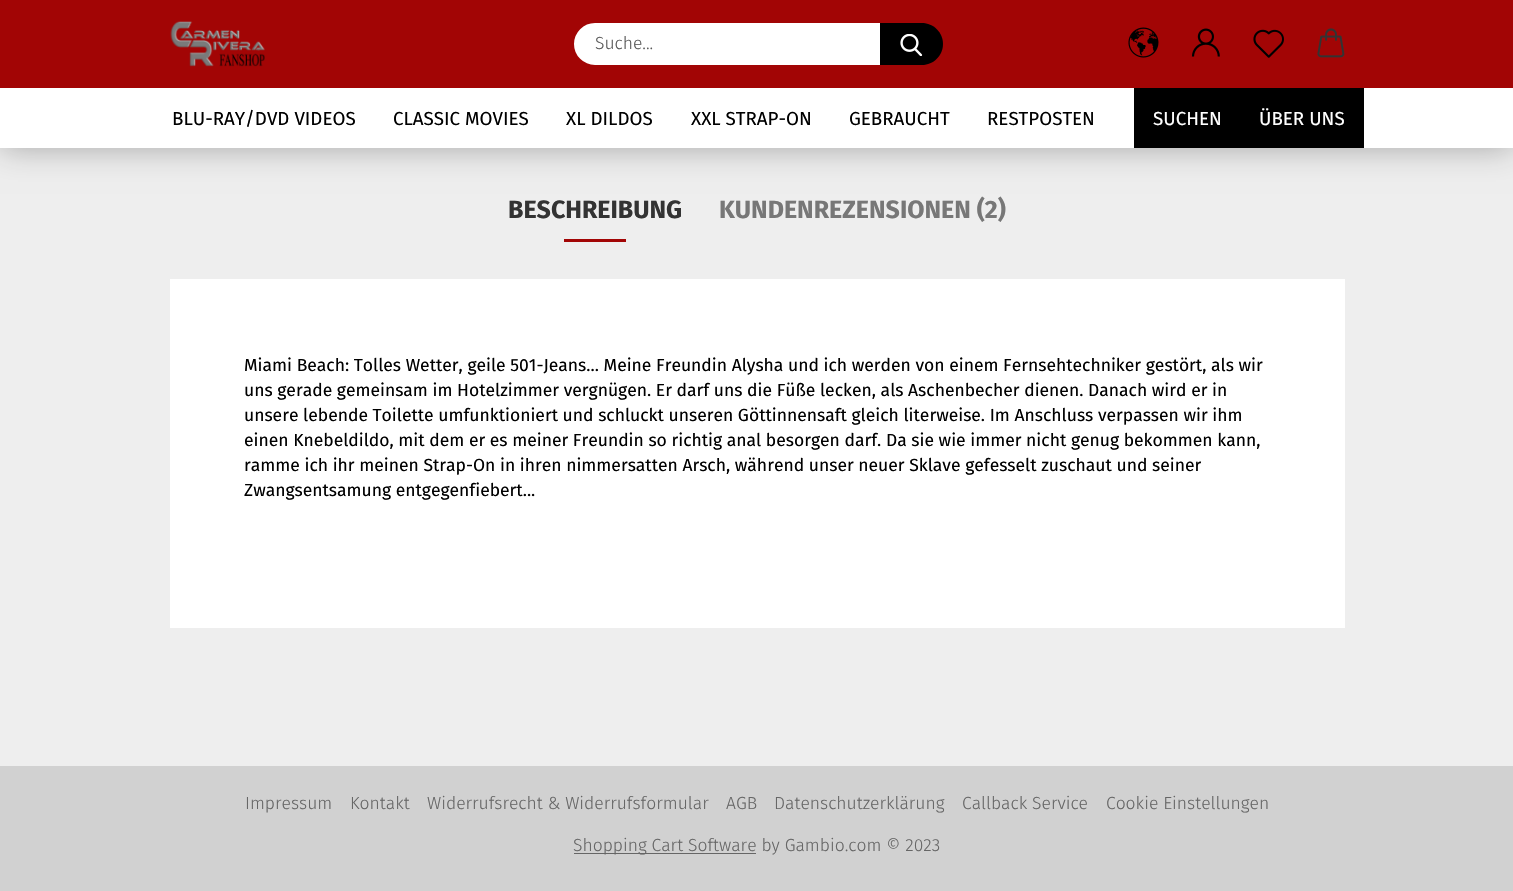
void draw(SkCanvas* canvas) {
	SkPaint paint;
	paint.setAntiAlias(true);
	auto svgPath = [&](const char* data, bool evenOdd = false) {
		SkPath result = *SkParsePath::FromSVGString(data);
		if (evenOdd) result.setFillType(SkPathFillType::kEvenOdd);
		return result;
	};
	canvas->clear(0xffd1d1d1);
	paint.setColor(0xffeeeeee);
	canvas->drawRect(SkRect::MakeXYWH(0, 148, 1513, 618), paint);
	paint.setColor(0x4d000000);
	paint.setMaskFilter(SkMaskFilter::MakeBlur(kNormal_SkBlurStyle, 15.5));
	canvas->drawRect(SkRect::MakeXYWH(0, 0, 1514, 148), paint);
	paint.setMaskFilter(nullptr);
	paint.setColor(0xffa20505);
	canvas->drawRect(SkRect::MakeXYWH(0, 0, 1513, 88), paint);
	canvas->drawImageRect(SkImages::DeferredFromEncodedData(SkData::MakeFromFileName("img1.png")), SkRect::MakeXYWH(170, 21, 95, 46), SkSamplingOptions());
	paint.setColor(0xffffffff);
	canvas->drawRoundRect(SkRect::MakeXYWH(575.5, 24.5, 363, 39), 19.5, 19.5, paint);
	paint.setStroke(true);
	paint.setStrokeWidth(3);
	canvas->drawRoundRect(SkRect::MakeXYWH(575.5, 24.5, 363, 39), 19.5, 19.5, paint);
	SkFont f1(fontMgr->matchFamilyStyle("Fira Sans", SkFontStyle(300, SkFontStyle::kNormal_Width, SkFontStyle::kUpright_Slant)), 17.5);
	f1.setSubpixel(true);
	paint.setStroke(false);
	paint.setColor(0xff595959);
	canvas->drawString("Suche...", 595, 49, f1, paint);
	paint.setColor(0xff000000);
	canvas->drawPath(svgPath("M880 23H922C933.5 23 943 32.5 943 44C943 55.5 933.5 65 922 65H880Z"), paint);
	canvas->drawImageRect(SkImages::DeferredFromEncodedData(SkData::MakeFromFileName("img2.png")), SkRect::MakeXYWH(900, 34, 23, 22), SkSamplingOptions());
	canvas->drawImageRect(SkImages::DeferredFromEncodedData(SkData::MakeFromFileName("img3.png")), SkRect::MakeXYWH(1128, 27, 31, 31), SkSamplingOptions());
	canvas->drawImageRect(SkImages::DeferredFromEncodedData(SkData::MakeFromFileName("img4.png")), SkRect::MakeXYWH(1191, 28, 29, 29), SkSamplingOptions());
	canvas->drawImageRect(SkImages::DeferredFromEncodedData(SkData::MakeFromFileName("img5.png")), SkRect::MakeXYWH(1253, 29, 31, 29), SkSamplingOptions());
	canvas->drawImageRect(SkImages::DeferredFromEncodedData(SkData::MakeFromFileName("img6.png")), SkRect::MakeXYWH(1317, 28, 28, 30), SkSamplingOptions());
	paint.setColor(0xffffffff);
	canvas->drawRect(SkRect::MakeXYWH(0, 88, 1513, 60), paint);
	SkFont f2(fontMgr->matchFamilyStyle("Fira Sans", SkFontStyle::Normal()), 18.75);
	f2.setSubpixel(true);
	paint.setColor(0xff000000);
	canvas->drawString("BLU-RAY/DVD VIDEOS", 172, 125, f2, paint);
	canvas->drawString("CLASSIC MOVIES", 393, 125, f2, paint);
	canvas->drawString("XL DILDOS", 566, 125, f2, paint);
	canvas->drawString("XXL STRAP-ON", 691, 125, f2, paint);
	canvas->drawString("GEBRAUCHT", 849, 125, f2, paint);
	canvas->drawString("RESTPOSTEN", 987, 125, f2, paint);
	canvas->drawRect(SkRect::MakeXYWH(1134, 88, 230, 60), paint);
	paint.setColor(0xffffffff);
	canvas->drawString("SUCHEN", 1153, 125, f2, paint);
	canvas->drawString("ÜBER UNS", 1259, 125, f2, paint);
	SkFont f3(fontMgr->matchFamilyStyle("Fira Sans", SkFontStyle::Bold()), 25);
	f3.setSubpixel(true);
	paint.setColor(0xff333333);
	canvas->drawString("BESCHREIBUNG", 508, 218, f3, paint);
	paint.setColor(0xffa20505);
	canvas->drawRect(SkRect::MakeXYWH(564, 239, 62, 3), paint);
	paint.setColor(0xff777777);
	canvas->drawString("KUNDENREZENSIONEN (2)", 719, 218, f3, paint);
	paint.setColor(0xffffffff);
	canvas->drawRect(SkRect::MakeXYWH(170, 279, 1175, 349), paint);
	SkFont f4(fontMgr->matchFamilyStyle("Fira Sans", SkFontStyle::Normal()), 17.5);
	f4.setSubpixel(true);
	paint.setColor(0xff000000);
	canvas->drawString("Miami Beach: Tolles Wetter, geile 501-Jeans... Meine Freundin Alysha und ich werden von einem Fernsehtechniker gestört, als wir", 244, 371, f4, paint);
	canvas->drawString("uns gerade gemeinsam im Hotelzimmer vergnügen. Er darf uns die Füße lecken, als Aschenbecher dienen. Danach wird er in", 244, 396, f4, paint);
	canvas->drawString("unsere lebende Toilette umfunktioniert und schluckt unseren Göttinnensaft gleich literweise. Im Anschluss verpassen wir ihm", 244, 421, f4, paint);
	canvas->drawString("einen Knebeldildo, mit dem er es meiner Freundin so richtig anal besorgen darf. Da sie wie immer nicht genug bekommen kann,", 244, 446, f4, paint);
	canvas->drawString("ramme ich ihr meinen Strap-On in ihren nimmersatten Arsch, während unser neuer Sklave gefesselt zuschaut und seiner", 244, 471, f4, paint);
	canvas->drawString("Zwangsentsamung entgegenfiebert...", 244, 496, f4, paint);
	paint.setColor(0xff666666);
	canvas->drawString("Impressum", 245, 809, f1, paint);
	canvas->drawString("Kontakt", 350, 809, f1, paint);
	canvas->drawString("Widerrufsrecht & Widerrufsformular", 427, 809, f1, paint);
	canvas->drawString("AGB", 726, 809, f1, paint);
	canvas->drawString("Datenschutzerklärung", 774, 809, f1, paint);
	canvas->drawString("Callback Service", 962, 809, f1, paint);
	canvas->drawString("Cookie Einstellungen", 1106, 809, f1, paint);
	canvas->drawRect(SkRect::MakeXYWH(574, 853, 182, 1), paint);
	canvas->drawString("Shopping Cart Software by Gambio.com © 2023", 573, 851, f1, paint);
}
